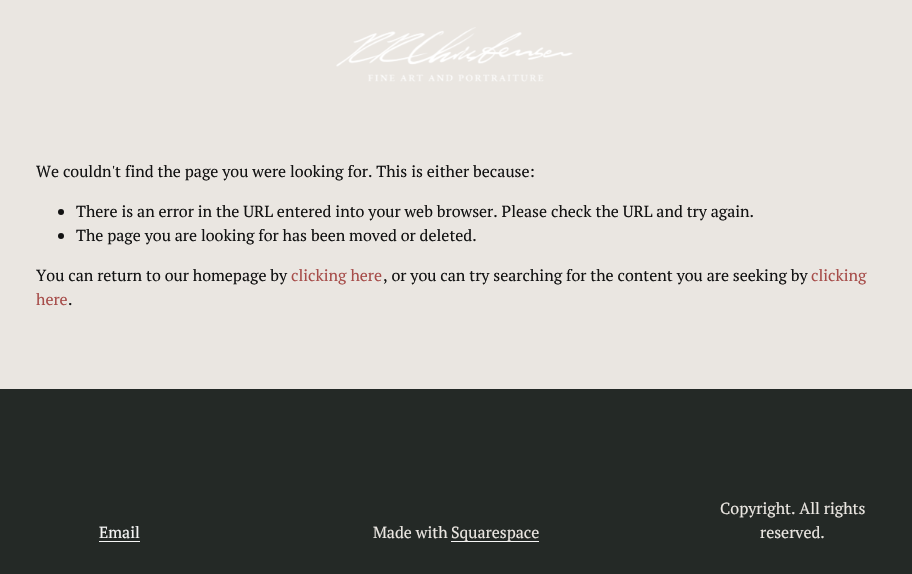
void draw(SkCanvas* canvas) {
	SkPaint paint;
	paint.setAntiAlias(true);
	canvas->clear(0xffeae6e1);
	canvas->drawImageRect(SkImages::DeferredFromEncodedData(SkData::MakeFromFileName("img1.png")), SkRect::MakeXYWH(336, 27, 237, 55), SkSamplingOptions());
	SkFont f1(fontMgr->matchFamilyStyle("PT Serif", SkFontStyle::Normal()), 16);
	f1.setSubpixel(true);
	paint.setColor(0xff121212);
	canvas->drawString("We couldn't find the page you were looking for. This is either because:", 36, 177, f1, paint);
	canvas->drawCircle(61, 212, 3, paint);
	canvas->drawString("There is an error in the URL entered into your web browser. Please check the URL and try again.", 76, 217, f1, paint);
	canvas->drawCircle(61, 236, 3, paint);
	canvas->drawString("The page you are looking for has been moved or deleted.", 76, 241, f1, paint);
	canvas->drawString("You can return to our homepage by", 36, 281, f1, paint);
	paint.setColor(0xffa74d4a);
	canvas->drawString("clicking here", 291, 281, f1, paint);
	paint.setColor(0xff121212);
	canvas->drawString(", or you can try searching for the content you are seeking by", 383, 281, f1, paint);
	paint.setColor(0xffa74d4a);
	canvas->drawString("clicking", 811, 281, f1, paint);
	canvas->drawString("here", 36, 305, f1, paint);
	paint.setColor(0xff121212);
	canvas->drawString(".", 68, 305, f1, paint);
	paint.setColor(0xff242926);
	canvas->drawRect(SkRect::MakeXYWH(0, 389, 912, 185), paint);
	paint.setColor(0xfff5f5f5);
	canvas->drawString("Email", 99, 538, f1, paint);
	canvas->drawRect(SkRect::MakeXYWH(99, 541, 41, 1), paint);
	paint.setColor(0xffeae6e1);
	canvas->drawString("Made with", 373, 538, f1, paint);
	paint.setColor(0xfff5f5f5);
	canvas->drawRect(SkRect::MakeXYWH(451, 541, 88, 1), paint);
	paint.setColor(0xffeae6e1);
	canvas->drawString("Squarespace", 451, 538, f1, paint);
	canvas->drawString("Copyright. All rights", 720, 514, f1, paint);
	canvas->drawString("reserved.", 760, 538, f1, paint);
}
